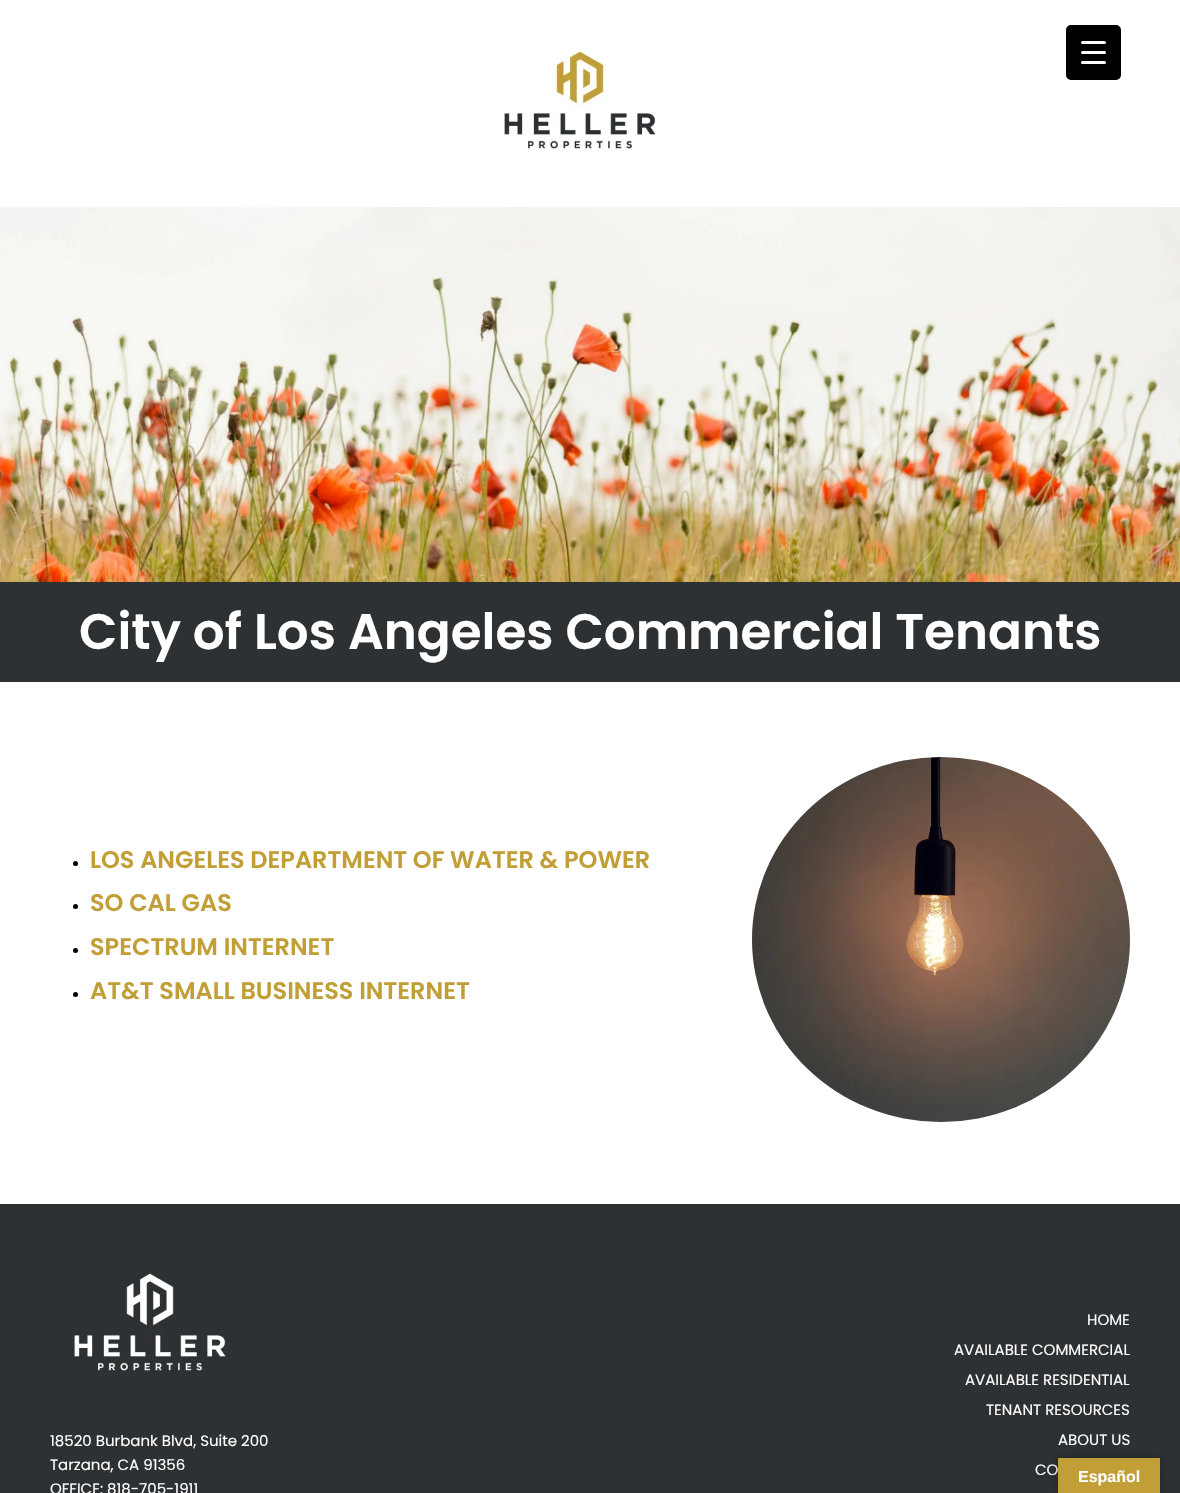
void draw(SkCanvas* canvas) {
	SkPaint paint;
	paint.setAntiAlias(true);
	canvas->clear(0xffffffff);
	paint.setColor(0xff000000);
	canvas->drawRoundRect(SkRect::MakeXYWH(1066, 25, 55, 55), 5, 5, paint);
	paint.setColor(0xffffffff);
	canvas->drawRoundRect(SkRect::MakeXYWH(1081, 51, 25, 3), 1.5, 1.5, paint);
	canvas->drawRoundRect(SkRect::MakeXYWH(1081, 41, 25, 3), 1.5, 1.5, paint);
	canvas->drawRoundRect(SkRect::MakeXYWH(1081, 61, 25, 3), 1.5, 1.5, paint);
	canvas->drawImageRect(SkImages::DeferredFromEncodedData(SkData::MakeFromFileName("img1.png")), SkRect::MakeXYWH(504, 49, 152, 101), SkSamplingOptions());
	canvas->drawImageRect(SkImages::DeferredFromEncodedData(SkData::MakeFromFileName("img2.png")), SkRect::MakeXYWH(0, 207, 1180, 375), SkSamplingOptions());
	paint.setColor(0xff2d3134);
	canvas->drawRect(SkRect::MakeXYWH(0, 582, 1180, 100), paint);
	SkFont f1(fontMgr->matchFamilyStyle("Poppins", SkFontStyle(600, SkFontStyle::kNormal_Width, SkFontStyle::kUpright_Slant)), 50);
	f1.setSubpixel(true);
	paint.setColor(0xffffffff);
	canvas->drawString("City of Los Angeles Commercial Tenants", 79, 649, f1, paint);
	paint.setColor(0xff000000);
	canvas->drawCircle(75.5, 863.5, 2.5, paint);
	SkFont f2(fontMgr->matchFamilyStyle("Poppins", SkFontStyle(600, SkFontStyle::kNormal_Width, SkFontStyle::kUpright_Slant)), 24);
	f2.setSubpixel(true);
	paint.setColor(0xffc29e36);
	canvas->drawString("LOS ANGELES DEPARTMENT OF WATER & POWER", 90, 868, f2, paint);
	paint.setColor(0xff000000);
	canvas->drawCircle(75.5, 906.5, 2.5, paint);
	paint.setColor(0xffc29e36);
	canvas->drawString("SO CAL GAS", 90, 911, f2, paint);
	paint.setColor(0xff000000);
	canvas->drawCircle(75.5, 950.5, 2.5, paint);
	paint.setColor(0xffc29e36);
	canvas->drawString("SPECTRUM INTERNET", 90, 955, f2, paint);
	paint.setColor(0xff000000);
	canvas->drawCircle(75.5, 994.5, 2.5, paint);
	paint.setColor(0xffc29e36);
	canvas->drawString("AT&T SMALL BUSINESS INTERNET", 90, 999, f2, paint);
	paint.setColor(0xffeeeeee);
	canvas->drawOval(SkRect::MakeXYWH(752, 757, 378, 365), paint);
	canvas->drawImageRect(SkImages::DeferredFromEncodedData(SkData::MakeFromFileName("img3.png")), SkRect::MakeXYWH(752, 757, 378, 365), SkSamplingOptions());
	paint.setColor(0xff2d3134);
	canvas->drawRect(SkRect::MakeXYWH(0, 1204, 1180, 289), paint);
	canvas->drawImageRect(SkImages::DeferredFromEncodedData(SkData::MakeFromFileName("img4.png")), SkRect::MakeXYWH(74, 1273, 152, 98), SkSamplingOptions());
	SkFont f3(fontMgr->matchFamilyStyle("Poppins", SkFontStyle::Normal()), 15);
	f3.setSubpixel(true);
	paint.setColor(0xffffffff);
	canvas->drawString("18520 Burbank Blvd, Suite 200", 50, 1446, f3, paint);
	canvas->drawString("Tarzana, CA 91356", 50, 1470, f3, paint);
	canvas->drawString("OFFICE: 818-705-1911", 50, 1494, f3, paint);
	canvas->drawString("HOME", 1087, 1325, f3, paint);
	canvas->drawString("AVAILABLE COMMERCIAL", 954, 1355, f3, paint);
	canvas->drawString("AVAILABLE RESIDENTIAL", 965, 1385, f3, paint);
	canvas->drawString("TENANT RESOURCES", 986, 1415, f3, paint);
	canvas->drawString("ABOUT US", 1058, 1445, f3, paint);
	canvas->drawString("CO", 1035, 1475, f3, paint);
	paint.setColor(0x4d000000);
	paint.setMaskFilter(SkMaskFilter::MakeBlur(kNormal_SkBlurStyle, 4.5));
	canvas->drawRect(SkRect::MakeXYWH(1058, 1458, 102, 35), paint);
	paint.setMaskFilter(nullptr);
	paint.setColor(0xffc29e36);
	canvas->drawRect(SkRect::MakeXYWH(1058, 1458, 102, 35), paint);
	SkFont f4(fontMgr->matchFamilyStyle("Liberation Sans", SkFontStyle::Bold()), 16);
	f4.setSubpixel(true);
	paint.setColor(0xffffffff);
	canvas->drawString("Español", 1078, 1482, f4, paint);
}
